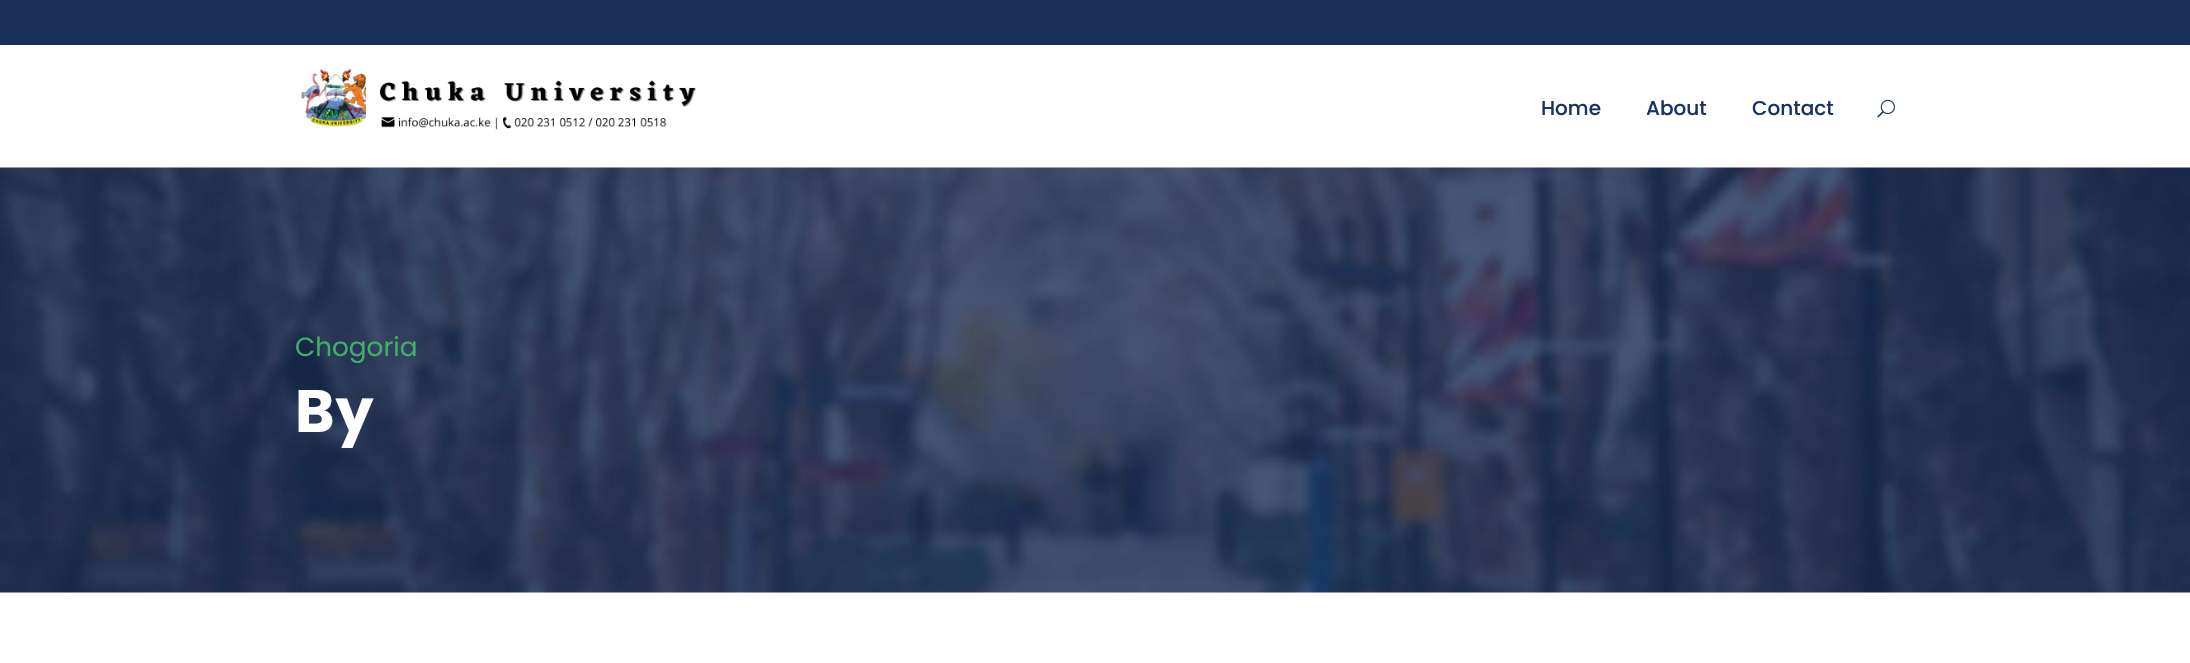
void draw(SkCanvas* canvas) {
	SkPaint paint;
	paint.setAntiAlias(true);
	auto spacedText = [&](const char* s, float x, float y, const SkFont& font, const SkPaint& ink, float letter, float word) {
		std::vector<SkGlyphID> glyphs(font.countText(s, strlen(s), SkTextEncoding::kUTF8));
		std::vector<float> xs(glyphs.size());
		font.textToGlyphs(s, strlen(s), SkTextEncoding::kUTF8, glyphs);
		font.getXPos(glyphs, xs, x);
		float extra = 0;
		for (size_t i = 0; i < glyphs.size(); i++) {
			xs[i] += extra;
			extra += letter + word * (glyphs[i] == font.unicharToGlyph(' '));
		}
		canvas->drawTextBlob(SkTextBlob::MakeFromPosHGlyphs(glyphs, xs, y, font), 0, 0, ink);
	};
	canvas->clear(0xffffffff);
	paint.setColor(0xff192f59);
	canvas->drawRect(SkRect::MakeXYWH(0, 0, 2190, 45), paint);
	paint.setColor(0x1a000000);
	paint.setMaskFilter(SkMaskFilter::MakeBlur(kNormal_SkBlurStyle, 2.5));
	canvas->drawRect(SkRect::MakeXYWH(0, 46, 2190, 123), paint);
	paint.setMaskFilter(nullptr);
	paint.setColor(0xffffffff);
	canvas->drawRect(SkRect::MakeXYWH(0, 45, 2190, 123), paint);
	canvas->drawImageRect(SkImages::DeferredFromEncodedData(SkData::MakeFromFileName("img1.png")), SkRect::MakeXYWH(301, 68, 395, 62), SkSamplingOptions());
	SkFont f1(fontMgr->matchFamilyStyle("Poppins", SkFontStyle(500, SkFontStyle::kNormal_Width, SkFontStyle::kUpright_Slant)), 20);
	f1.setSubpixel(true);
	paint.setColor(0xff163269);
	canvas->drawString("Home", 1541, 115, f1, paint);
	canvas->drawString("About", 1646, 115, f1, paint);
	canvas->drawString("Contact", 1752, 115, f1, paint);
	canvas->drawImageRect(SkImages::DeferredFromEncodedData(SkData::MakeFromFileName("img2.png")), SkRect::MakeXYWH(1877, 99, 18, 19), SkSamplingOptions());
	canvas->drawImageRect(SkImages::DeferredFromEncodedData(SkData::MakeFromFileName("img3.png")), SkRect::MakeXYWH(0, 167, 2190, 426), SkSamplingOptions());
	SkFont f2(fontMgr->matchFamilyStyle("Poppins", SkFontStyle::Normal()), 26.25);
	f2.setSubpixel(true);
	paint.setColor(0xff3db166);
	canvas->drawString("Chogoria", 295, 356, f2, paint);
	SkFont f3(fontMgr->matchFamilyStyle("Poppins", SkFontStyle::Bold()), 60);
	f3.setSubpixel(true);
	paint.setColor(0xffffffff);
	spacedText("By", 295, 432, f3, paint, 1, 0);
}
